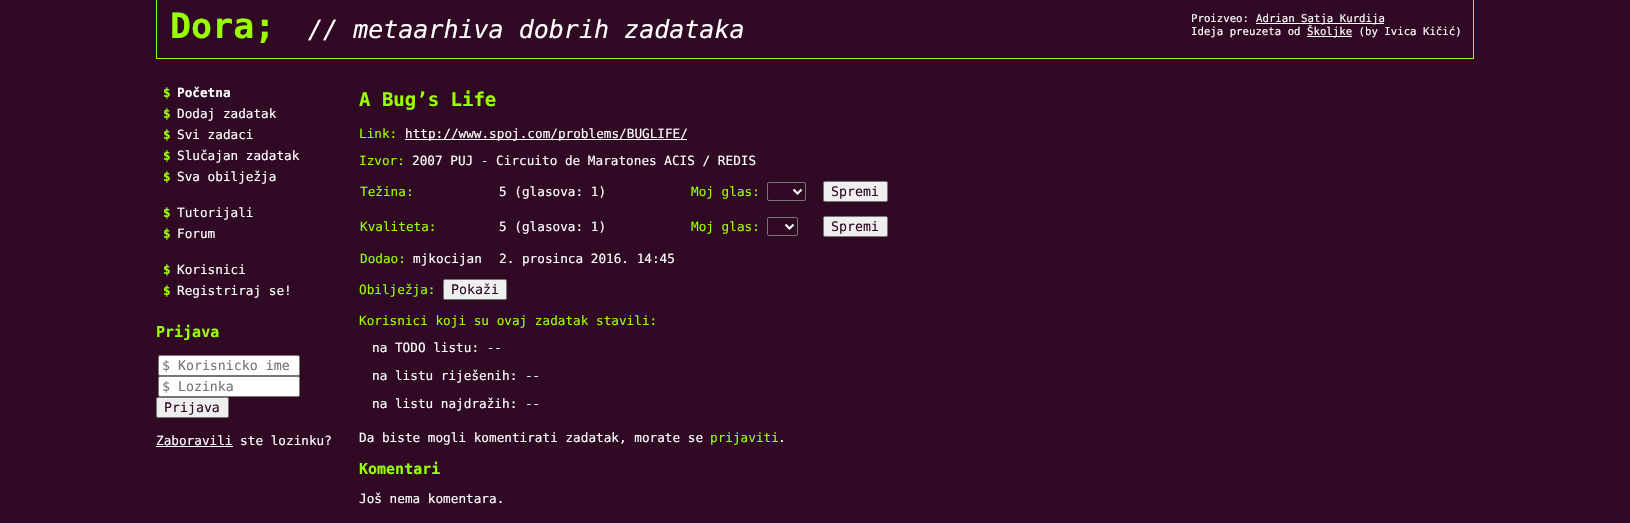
void draw(SkCanvas* canvas) {
	SkPaint paint;
	paint.setAntiAlias(true);
	auto svgPath = [&](const char* data, bool evenOdd = false) {
		SkPath result = *SkParsePath::FromSVGString(data);
		if (evenOdd) result.setFillType(SkPathFillType::kEvenOdd);
		return result;
	};
	canvas->clear(0xff300a24);
	paint.setStroke(true);
	paint.setStrokeWidth(1);
	paint.setColor(0xff99ff00);
	canvas->drawRect(SkRect::MakeXYWH(156.5, -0.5, 1317, 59), paint);
	SkFont f1(fontMgr->matchFamilyStyle("DejaVu Sans Mono", SkFontStyle::Bold()), 35);
	f1.setSubpixel(true);
	paint.setStroke(false);
	canvas->drawString("Dora;", 170, 38, f1, paint);
	SkFont f2(fontMgr->matchFamilyStyle("DejaVu Sans Mono", SkFontStyle::Italic()), 25);
	f2.setSubpixel(true);
	paint.setColor(0xffffffff);
	canvas->drawString("// metaarhiva dobrih zadataka", 308, 38, f2, paint);
	SkFont f3(fontMgr->matchFamilyStyle("DejaVu Sans Mono", SkFontStyle::Normal()), 10.7);
	f3.setSubpixel(true);
	canvas->drawString("Proizveo:", 1191, 22, f3, paint);
	canvas->drawRect(SkRect::MakeXYWH(1256, 23, 128, 1), paint);
	canvas->drawString("Adrian Satja Kurdija", 1256, 22, f3, paint);
	canvas->drawString("Ideja preuzeta od", 1191, 35, f3, paint);
	canvas->drawRect(SkRect::MakeXYWH(1307, 36, 45, 1), paint);
	canvas->drawString("Školjke (by Ivica Kičić)", 1307, 35, f3, paint);
	SkFont f4(fontMgr->matchFamilyStyle("DejaVu Sans Mono", SkFontStyle::Bold()), 12.7);
	f4.setSubpixel(true);
	paint.setColor(0xff99ff00);
	canvas->drawString("$", 163, 97, f4, paint);
	paint.setColor(0xffffffff);
	canvas->drawString("Početna", 177, 97, f4, paint);
	paint.setColor(0xff99ff00);
	canvas->drawString("$", 163, 118, f4, paint);
	SkFont f5(fontMgr->matchFamilyStyle("DejaVu Sans Mono", SkFontStyle::Normal()), 12.7);
	f5.setSubpixel(true);
	paint.setColor(0xffffffff);
	canvas->drawString("Dodaj zadatak", 177, 118, f5, paint);
	paint.setColor(0xff99ff00);
	canvas->drawString("$", 163, 139, f4, paint);
	paint.setColor(0xffffffff);
	canvas->drawString("Svi zadaci", 177, 139, f5, paint);
	paint.setColor(0xff99ff00);
	canvas->drawString("$", 163, 160, f4, paint);
	paint.setColor(0xffffffff);
	canvas->drawString("Slučajan zadatak", 177, 160, f5, paint);
	paint.setColor(0xff99ff00);
	canvas->drawString("$", 163, 181, f4, paint);
	paint.setColor(0xffffffff);
	canvas->drawString("Sva obilježja", 177, 181, f5, paint);
	paint.setColor(0xff99ff00);
	canvas->drawString("$", 163, 217, f4, paint);
	paint.setColor(0xffffffff);
	canvas->drawString("Tutorijali", 177, 217, f5, paint);
	paint.setColor(0xff99ff00);
	canvas->drawString("$", 163, 238, f4, paint);
	paint.setColor(0xffffffff);
	canvas->drawString("Forum", 177, 238, f5, paint);
	paint.setColor(0xff99ff00);
	canvas->drawString("$", 163, 274, f4, paint);
	paint.setColor(0xffffffff);
	canvas->drawString("Korisnici", 177, 274, f5, paint);
	paint.setColor(0xff99ff00);
	canvas->drawString("$", 163, 295, f4, paint);
	paint.setColor(0xffffffff);
	canvas->drawString("Registriraj se!", 177, 295, f5, paint);
	SkFont f6(fontMgr->matchFamilyStyle("DejaVu Sans Mono", SkFontStyle::Bold()), 15);
	f6.setSubpixel(true);
	paint.setColor(0xff99ff00);
	canvas->drawString("Prijava", 156, 337, f6, paint);
	paint.setColor(0xffffffff);
	canvas->drawRoundRect(SkRect::MakeXYWH(158.5, 355.5, 141, 20), 1.5, 1.5, paint);
	paint.setStroke(true);
	paint.setColor(0xff767676);
	canvas->drawRoundRect(SkRect::MakeXYWH(158.5, 355.5, 141, 20), 1.5, 1.5, paint);
	SkFont f7(fontMgr->matchFamilyStyle("DejaVu Sans Mono", SkFontStyle::Normal()), 13.25);
	f7.setSubpixel(true);
	paint.setStroke(false);
	paint.setColor(0xff757575);
	canvas->drawString("$ Korisnicko ime", 162, 370, f7, paint);
	paint.setColor(0xffffffff);
	canvas->drawRoundRect(SkRect::MakeXYWH(158.5, 376.5, 141, 20), 1.5, 1.5, paint);
	paint.setStroke(true);
	paint.setColor(0xff767676);
	canvas->drawRoundRect(SkRect::MakeXYWH(158.5, 376.5, 141, 20), 1.5, 1.5, paint);
	paint.setStroke(false);
	paint.setColor(0xff757575);
	canvas->drawString("$ Lozinka", 162, 391, f7, paint);
	paint.setColor(0xffefefef);
	canvas->drawRoundRect(SkRect::MakeXYWH(156.5, 397.5, 72, 20), 1.5, 1.5, paint);
	paint.setStroke(true);
	paint.setColor(0xff767676);
	canvas->drawRoundRect(SkRect::MakeXYWH(156.5, 397.5, 72, 20), 1.5, 1.5, paint);
	paint.setStroke(false);
	paint.setColor(0xff300a24);
	canvas->drawString("Prijava", 164, 412, f7, paint);
	paint.setColor(0xffffffff);
	canvas->drawString("Zaboravili ste lozinku?", 156, 445, f5, paint);
	canvas->drawRect(SkRect::MakeXYWH(156, 446, 77, 1), paint);
	SkFont f8(fontMgr->matchFamilyStyle("DejaVu Sans Mono", SkFontStyle::Bold()), 19);
	f8.setSubpixel(true);
	paint.setColor(0xff99ff00);
	canvas->drawString("A Bug’s Life", 359, 106, f8, paint);
	canvas->drawString("Link:", 359, 138, f5, paint);
	paint.setColor(0xffffffff);
	canvas->drawRect(SkRect::MakeXYWH(405, 139, 282, 1), paint);
	canvas->drawString("http://www.spoj.com/problems/BUGLIFE/", 405, 138, f5, paint);
	paint.setColor(0xff99ff00);
	canvas->drawString("Izvor:", 359, 165, f5, paint);
	paint.setColor(0xffffffff);
	canvas->drawString("2007 PUJ - Circuito de Maratones ACIS / REDIS", 412, 165, f5, paint);
	paint.setColor(0xff99ff00);
	canvas->drawString("Težina:", 360, 196, f5, paint);
	paint.setColor(0xffffffff);
	canvas->drawString("5 (glasova: 1)", 499, 196, f5, paint);
	paint.setColor(0xff99ff00);
	canvas->drawString("Moj glas:", 691, 196, f5, paint);
	paint.setStroke(true);
	paint.setColor(0xff767676);
	canvas->drawRoundRect(SkRect::MakeXYWH(767.5, 182.5, 38, 18), 1.5, 1.5, paint);
	paint.setStrokeWidth(2);
	paint.setColor(0xffffffff);
	canvas->drawPath(svgPath("M793.5 189.5L797.5 193.5L801.5 189.5"), paint);
	paint.setStroke(false);
	paint.setColor(0xffefefef);
	canvas->drawRoundRect(SkRect::MakeXYWH(823.5, 181.5, 64, 20), 1.5, 1.5, paint);
	paint.setStroke(true);
	paint.setStrokeWidth(1);
	paint.setColor(0xff767676);
	canvas->drawRoundRect(SkRect::MakeXYWH(823.5, 181.5, 64, 20), 1.5, 1.5, paint);
	paint.setStroke(false);
	paint.setColor(0xff300a24);
	canvas->drawString("Spremi", 831, 196, f7, paint);
	paint.setColor(0xff99ff00);
	canvas->drawString("Kvaliteta:", 360, 231, f5, paint);
	paint.setColor(0xffffffff);
	canvas->drawString("5 (glasova: 1)", 499, 231, f5, paint);
	paint.setColor(0xff99ff00);
	canvas->drawString("Moj glas:", 691, 231, f5, paint);
	paint.setStroke(true);
	paint.setColor(0xff767676);
	canvas->drawRoundRect(SkRect::MakeXYWH(767.5, 217.5, 30, 18), 1.5, 1.5, paint);
	paint.setStrokeWidth(2);
	paint.setColor(0xffffffff);
	canvas->drawPath(svgPath("M785.5 224.5L789.5 228.5L793.5 224.5"), paint);
	paint.setStroke(false);
	paint.setColor(0xffefefef);
	canvas->drawRoundRect(SkRect::MakeXYWH(823.5, 216.5, 64, 20), 1.5, 1.5, paint);
	paint.setStroke(true);
	paint.setStrokeWidth(1);
	paint.setColor(0xff767676);
	canvas->drawRoundRect(SkRect::MakeXYWH(823.5, 216.5, 64, 20), 1.5, 1.5, paint);
	paint.setStroke(false);
	paint.setColor(0xff300a24);
	canvas->drawString("Spremi", 831, 231, f7, paint);
	paint.setColor(0xff99ff00);
	canvas->drawString("Dodao:", 360, 263, f5, paint);
	paint.setColor(0xffffffff);
	canvas->drawString("mjkocijan", 413, 263, f5, paint);
	canvas->drawString("2. prosinca 2016. 14:45", 499, 263, f5, paint);
	paint.setColor(0xff99ff00);
	canvas->drawString("Obilježja:", 359, 294, f5, paint);
	paint.setColor(0xffefefef);
	canvas->drawRoundRect(SkRect::MakeXYWH(443.5, 279.5, 63, 20), 1.5, 1.5, paint);
	paint.setStroke(true);
	paint.setColor(0xff767676);
	canvas->drawRoundRect(SkRect::MakeXYWH(443.5, 279.5, 63, 20), 1.5, 1.5, paint);
	paint.setStroke(false);
	paint.setColor(0xff300a24);
	canvas->drawString("Pokaži", 451, 294, f7, paint);
	paint.setColor(0xff99ff00);
	canvas->drawString("Korisnici koji su ovaj zadatak stavili:", 359, 325, f5, paint);
	paint.setColor(0xffffffff);
	canvas->drawString("na TODO listu: --", 372, 352, f5, paint);
	canvas->drawString("na listu riješenih: --", 372, 380, f5, paint);
	canvas->drawString("na listu najdražih: --", 372, 408, f5, paint);
	canvas->drawString("Da biste mogli komentirati zadatak, morate se", 359, 442, f5, paint);
	paint.setColor(0xff99ff00);
	canvas->drawString("prijaviti", 710, 442, f5, paint);
	paint.setColor(0xffffffff);
	canvas->drawString(".", 778, 442, f5, paint);
	paint.setColor(0xff99ff00);
	canvas->drawString("Komentari", 359, 474, f6, paint);
	paint.setColor(0xffffffff);
	canvas->drawString("Još nema komentara.", 359, 503, f5, paint);
}
